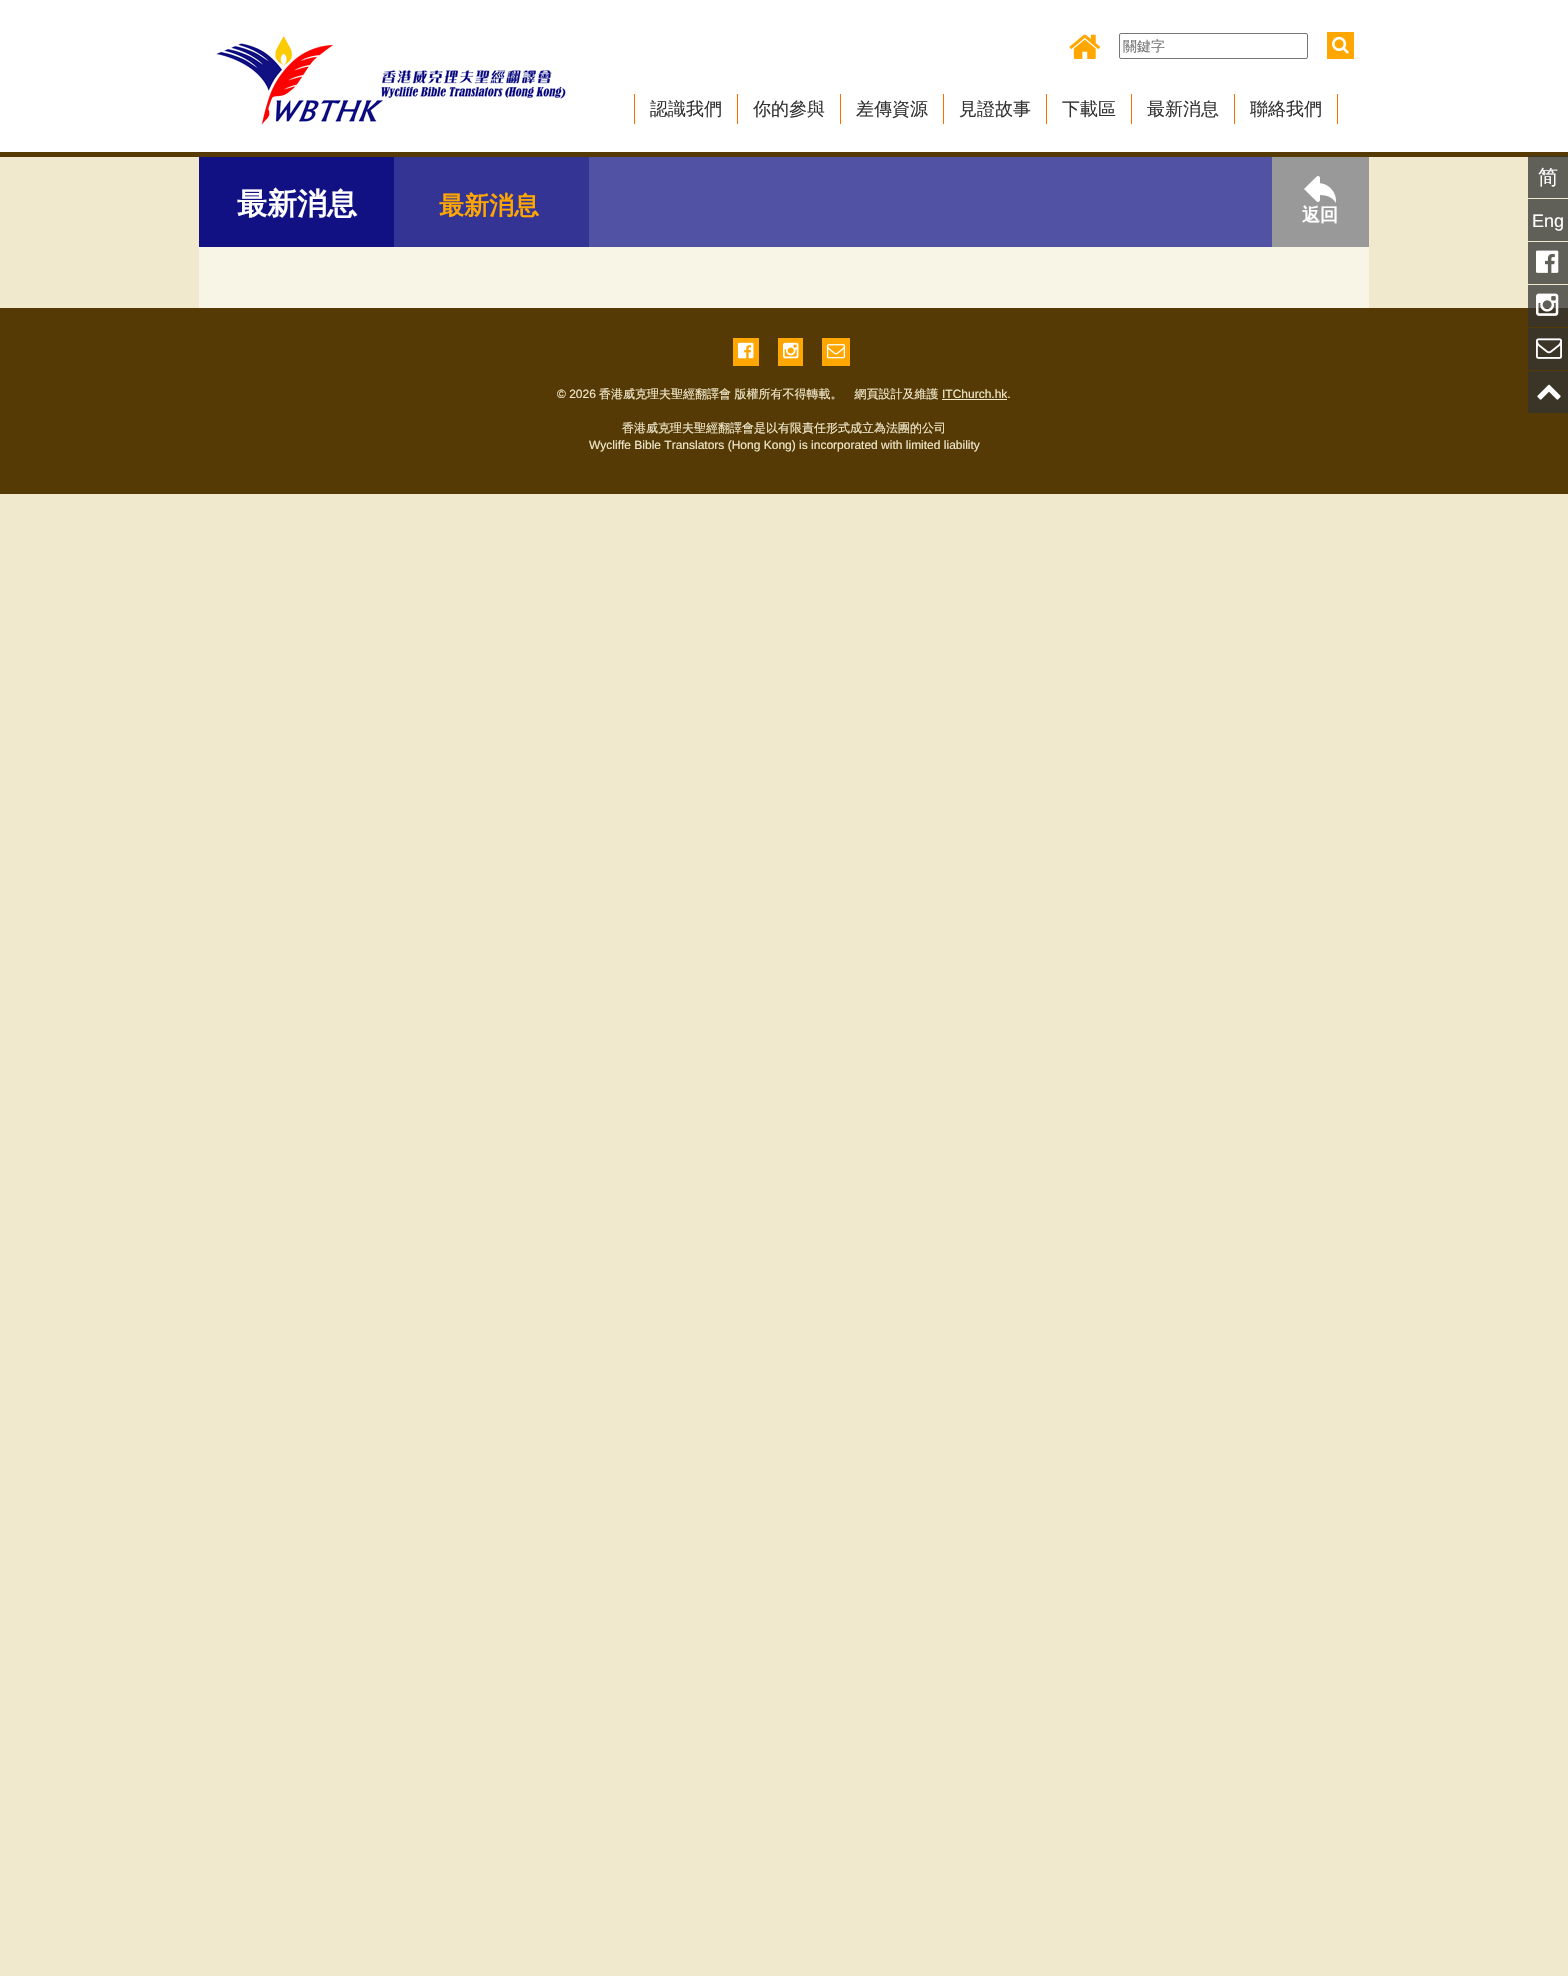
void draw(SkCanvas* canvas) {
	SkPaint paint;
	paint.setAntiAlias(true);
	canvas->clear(0xfff0e9cd);
	paint.setColor(0xff605f58);
	canvas->drawRect(SkRect::MakeXYWH(1528, 285, 40, 23), paint);
	canvas->drawRect(SkRect::MakeXYWH(1528, 157, 40, 41), paint);
	paint.setColor(0xffffffff);
	canvas->drawRect(SkRect::MakeXYWH(0, 0, 1568, 152), paint);
	paint.setColor(0xff563a05);
	canvas->drawRect(SkRect::MakeXYWH(0, 152, 1568, 5), paint);
	paint.setColor(0xff3b3528);
	canvas->drawRect(SkRect::MakeXYWH(1528, 156, 40, 1), paint);
	canvas->drawImageRect(SkImages::DeferredFromEncodedData(SkData::MakeFromFileName("img1.png")), SkRect::MakeXYWH(216, 36, 350, 89), SkSamplingOptions());
	canvas->drawImageRect(SkImages::DeferredFromEncodedData(SkData::MakeFromFileName("img2.png")), SkRect::MakeXYWH(1069, 34, 31, 25), SkSamplingOptions());
	paint.setStroke(true);
	paint.setStrokeWidth(1);
	paint.setColor(0xff767676);
	canvas->drawRoundRect(SkRect::MakeXYWH(1119.5, 33.5, 188, 25), 1.5, 1.5, paint);
	SkFont f1(fontMgr->matchFamilyStyle("WenQuanYi Zen Hei", SkFontStyle(500, SkFontStyle::kNormal_Width, SkFontStyle::kUpright_Slant)), 14);
	f1.setSubpixel(true);
	paint.setStroke(false);
	paint.setColor(0xff757575);
	canvas->drawString("關鍵字", 1123, 51, f1, paint);
	paint.setColor(0xffffa700);
	canvas->drawRect(SkRect::MakeXYWH(1327, 32, 27, 27), paint);
	canvas->drawImageRect(SkImages::DeferredFromEncodedData(SkData::MakeFromFileName("img3.png")), SkRect::MakeXYWH(1332, 36, 17, 18), SkSamplingOptions());
	paint.setColor(0xfffe6c00);
	canvas->drawRect(SkRect::MakeXYWH(634, 94, 1, 30), paint);
	SkFont f2(fontMgr->matchFamilyStyle("WenQuanYi Zen Hei", SkFontStyle(500, SkFontStyle::kNormal_Width, SkFontStyle::kUpright_Slant)), 18);
	f2.setSubpixel(true);
	paint.setColor(0xff323232);
	canvas->drawString("認識我們", 650, 115, f2, paint);
	paint.setColor(0xfffe6c00);
	canvas->drawRect(SkRect::MakeXYWH(737, 94, 1, 30), paint);
	paint.setColor(0xff323232);
	canvas->drawString("你的參與", 753, 115, f2, paint);
	paint.setColor(0xfffe6c00);
	canvas->drawRect(SkRect::MakeXYWH(840, 94, 1, 30), paint);
	paint.setColor(0xff323232);
	canvas->drawString("差傳資源", 856, 115, f2, paint);
	paint.setColor(0xfffe6c00);
	canvas->drawRect(SkRect::MakeXYWH(943, 94, 1, 30), paint);
	paint.setColor(0xff323232);
	canvas->drawString("見證故事", 959, 115, f2, paint);
	paint.setColor(0xfffe6c00);
	canvas->drawRect(SkRect::MakeXYWH(1046, 94, 1, 30), paint);
	paint.setColor(0xff323232);
	canvas->drawString("下載區", 1062, 115, f2, paint);
	paint.setColor(0xfffe6c00);
	canvas->drawRect(SkRect::MakeXYWH(1131, 94, 1, 30), paint);
	paint.setColor(0xff323232);
	canvas->drawString("最新消息", 1147, 115, f2, paint);
	paint.setColor(0xfffe6c00);
	canvas->drawRect(SkRect::MakeXYWH(1337, 94, 1, 30), paint);
	canvas->drawRect(SkRect::MakeXYWH(1234, 94, 1, 30), paint);
	paint.setColor(0xff323232);
	canvas->drawString("聯絡我們", 1250, 115, f2, paint);
	paint.setColor(0xff111183);
	canvas->drawRect(SkRect::MakeXYWH(199, 157, 195, 90), paint);
	SkFont f3(fontMgr->matchFamilyStyle("WenQuanYi Zen Hei", SkFontStyle::Bold()), 30);
	f3.setSubpixel(true);
	paint.setColor(0xffffffff);
	canvas->drawString("最新消息", 237, 214, f3, paint);
	paint.setColor(0xff343495);
	canvas->drawRect(SkRect::MakeXYWH(394, 157, 195, 90), paint);
	SkFont f4(fontMgr->matchFamilyStyle("WenQuanYi Zen Hei", SkFontStyle::Bold()), 25);
	f4.setSubpixel(true);
	paint.setColor(0xffffa700);
	canvas->drawString("最新消息", 439, 214, f4, paint);
	paint.setColor(0xff5252a5);
	canvas->drawRect(SkRect::MakeXYWH(589, 157, 683, 90), paint);
	paint.setColor(0xff999999);
	canvas->drawRect(SkRect::MakeXYWH(1272, 157, 97, 90), paint);
	canvas->drawImageRect(SkImages::DeferredFromEncodedData(SkData::MakeFromFileName("img4.png")), SkRect::MakeXYWH(1304, 176, 32, 27), SkSamplingOptions());
	SkFont f5(fontMgr->matchFamilyStyle("WenQuanYi Zen Hei", SkFontStyle::Bold()), 18);
	f5.setSubpixel(true);
	paint.setColor(0xffffffff);
	canvas->drawString("返回", 1302, 221, f5, paint);
	paint.setColor(0xfff8f4e6);
	canvas->drawRect(SkRect::MakeXYWH(199, 247, 1170, 61), paint);
	SkFont f6(fontMgr->matchFamilyStyle("WenQuanYi Zen Hei", SkFontStyle(500, SkFontStyle::kNormal_Width, SkFontStyle::kUpright_Slant)), 20);
	f6.setSubpixel(true);
	paint.setColor(0xffffffff);
	canvas->drawString("简", 1538, 184, f6, paint);
	paint.setColor(0xff605f58);
	canvas->drawRect(SkRect::MakeXYWH(1528, 199, 40, 42), paint);
	SkFont f7(fontMgr->matchFamilyStyle("Liberation Sans", SkFontStyle::Normal()), 18);
	f7.setSubpixel(true);
	paint.setColor(0xffffffff);
	canvas->drawString("Eng", 1532, 227, f7, paint);
	paint.setColor(0xff605f58);
	canvas->drawRect(SkRect::MakeXYWH(1528, 242, 40, 42), paint);
	canvas->drawImageRect(SkImages::DeferredFromEncodedData(SkData::MakeFromFileName("img5.png")), SkRect::MakeXYWH(1536, 250, 23, 23), SkSamplingOptions());
	paint.setColor(0xff563a05);
	canvas->drawRect(SkRect::MakeXYWH(0, 308, 1568, 186), paint);
	paint.setColor(0xff3b3528);
	canvas->drawRect(SkRect::MakeXYWH(1528, 308, 40, 19), paint);
	canvas->drawImageRect(SkImages::DeferredFromEncodedData(SkData::MakeFromFileName("img6.png")), SkRect::MakeXYWH(1536, 293, 23, 23), SkSamplingOptions());
	canvas->drawRect(SkRect::MakeXYWH(1528, 328, 40, 42), paint);
	canvas->drawImageRect(SkImages::DeferredFromEncodedData(SkData::MakeFromFileName("img7.png")), SkRect::MakeXYWH(1536, 338, 26, 21), SkSamplingOptions());
	canvas->drawRect(SkRect::MakeXYWH(1528, 371, 40, 42), paint);
	canvas->drawImageRect(SkImages::DeferredFromEncodedData(SkData::MakeFromFileName("img8.png")), SkRect::MakeXYWH(1537, 384, 24, 16), SkSamplingOptions());
	paint.setColor(0xffffa700);
	canvas->drawRect(SkRect::MakeXYWH(733, 338, 26, 28), paint);
	canvas->drawImageRect(SkImages::DeferredFromEncodedData(SkData::MakeFromFileName("img9.png")), SkRect::MakeXYWH(738, 342, 16, 17), SkSamplingOptions());
	canvas->drawRect(SkRect::MakeXYWH(778, 338, 25, 28), paint);
	canvas->drawImageRect(SkImages::DeferredFromEncodedData(SkData::MakeFromFileName("img10.png")), SkRect::MakeXYWH(783, 342, 16, 17), SkSamplingOptions());
	canvas->drawRect(SkRect::MakeXYWH(822, 338, 28, 28), paint);
	canvas->drawImageRect(SkImages::DeferredFromEncodedData(SkData::MakeFromFileName("img11.png")), SkRect::MakeXYWH(827, 344, 18, 15), SkSamplingOptions());
	SkFont f8(fontMgr->matchFamilyStyle("Liberation Sans", SkFontStyle::Normal()), 12);
	f8.setSubpixel(true);
	paint.setColor(0xfff0e9cd);
	canvas->drawString("© 2026", 557, 398, f8, paint);
	SkFont f9(fontMgr->matchFamilyStyle("WenQuanYi Zen Hei", SkFontStyle(500, SkFontStyle::kNormal_Width, SkFontStyle::kUpright_Slant)), 12);
	f9.setSubpixel(true);
	canvas->drawString("香港威克理夫聖經翻譯會 版權所有不得轉載。　網頁設計及維護", 599, 398, f9, paint);
	canvas->drawString("ITChurch.hk.", 942, 398, f8, paint);
	canvas->drawRect(SkRect::MakeXYWH(942, 399, 65, 1), paint);
	canvas->drawString("香港威克理夫聖經翻譯會是以有限責任形式成立為法團的公司", 622, 432, f9, paint);
	canvas->drawString("Wycliffe Bible Translators (Hong Kong) is incorporated with limited liability", 589, 449, f8, paint);
}
